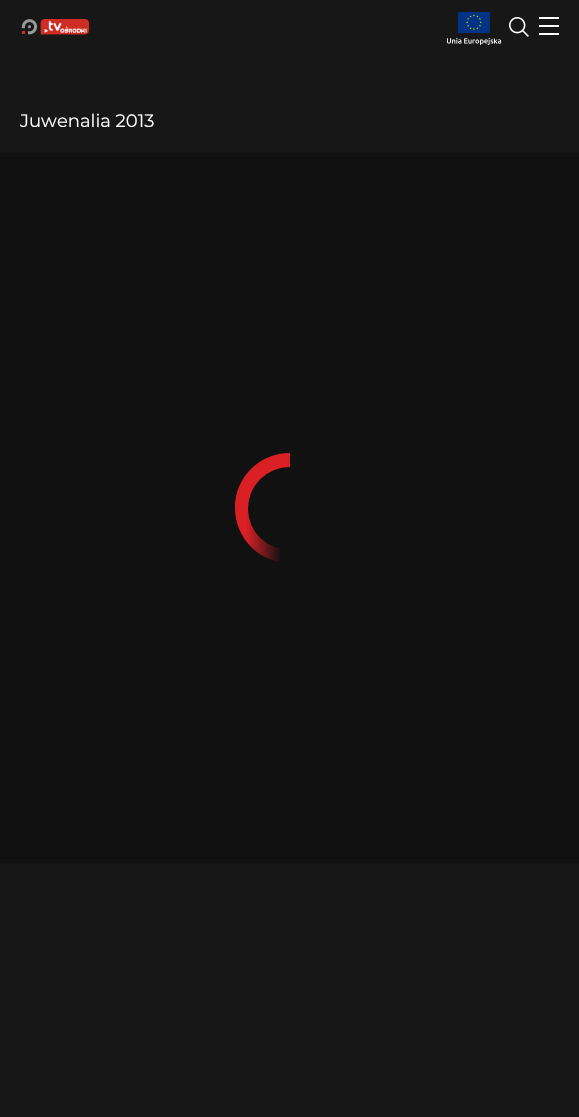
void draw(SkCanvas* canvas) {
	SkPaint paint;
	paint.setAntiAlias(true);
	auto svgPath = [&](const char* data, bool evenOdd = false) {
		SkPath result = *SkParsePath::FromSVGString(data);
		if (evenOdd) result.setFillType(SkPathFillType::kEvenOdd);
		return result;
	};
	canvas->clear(0xff171717);
	canvas->drawImageRect(SkImages::DeferredFromEncodedData(SkData::MakeFromFileName("img1.png")), SkRect::MakeXYWH(21, 19, 69, 16), SkSamplingOptions());
	canvas->drawImageRect(SkImages::DeferredFromEncodedData(SkData::MakeFromFileName("img2.png")), SkRect::MakeXYWH(447, 12, 55, 33), SkSamplingOptions());
	canvas->drawImageRect(SkImages::DeferredFromEncodedData(SkData::MakeFromFileName("img3.png")), SkRect::MakeXYWH(509, 17, 20, 20), SkSamplingOptions());
	paint.setColor(0xffffffff);
	canvas->drawRect(SkRect::MakeXYWH(539, 25, 20, 2), paint);
	canvas->drawRect(SkRect::MakeXYWH(539, 17, 20, 2), paint);
	canvas->drawRect(SkRect::MakeXYWH(539, 33, 20, 2), paint);
	SkFont f1(fontMgr->matchFamilyStyle("Montserrat", SkFontStyle(100, SkFontStyle::kNormal_Width, SkFontStyle::kUpright_Slant)), 18);
	f1.setSubpixel(true);
	canvas->drawString("Juwenalia 2013", 20, 127, f1, paint);
	paint.setColor(0xff111111);
	canvas->drawRect(SkRect::MakeXYWH(0, 153, 579, 710), paint);
	{
		const SkColor colors[] = {0xffdb2025, 0xff111111};
		const float stops[] = {0.1, 0.42};
		const SkPoint ends[] = {{235, 508}, {345, 508}};
		paint.setShader(SkGradientShader::MakeLinear(ends, colors, stops, 2, SkTileMode::kClamp));
		paint.setAlpha(255);
	}
	canvas->drawCircle(290, 508, 55, paint);
	paint.setShader(nullptr);
	paint.setColor(0xffdb2025);
	canvas->drawPath(svgPath("M290 453V508H235C235 477.5 259.5 453 290 453Z"), paint);
	paint.setColor(0xff111111);
	canvas->drawCircle(289.5, 508.5, 41.5, paint);
}
